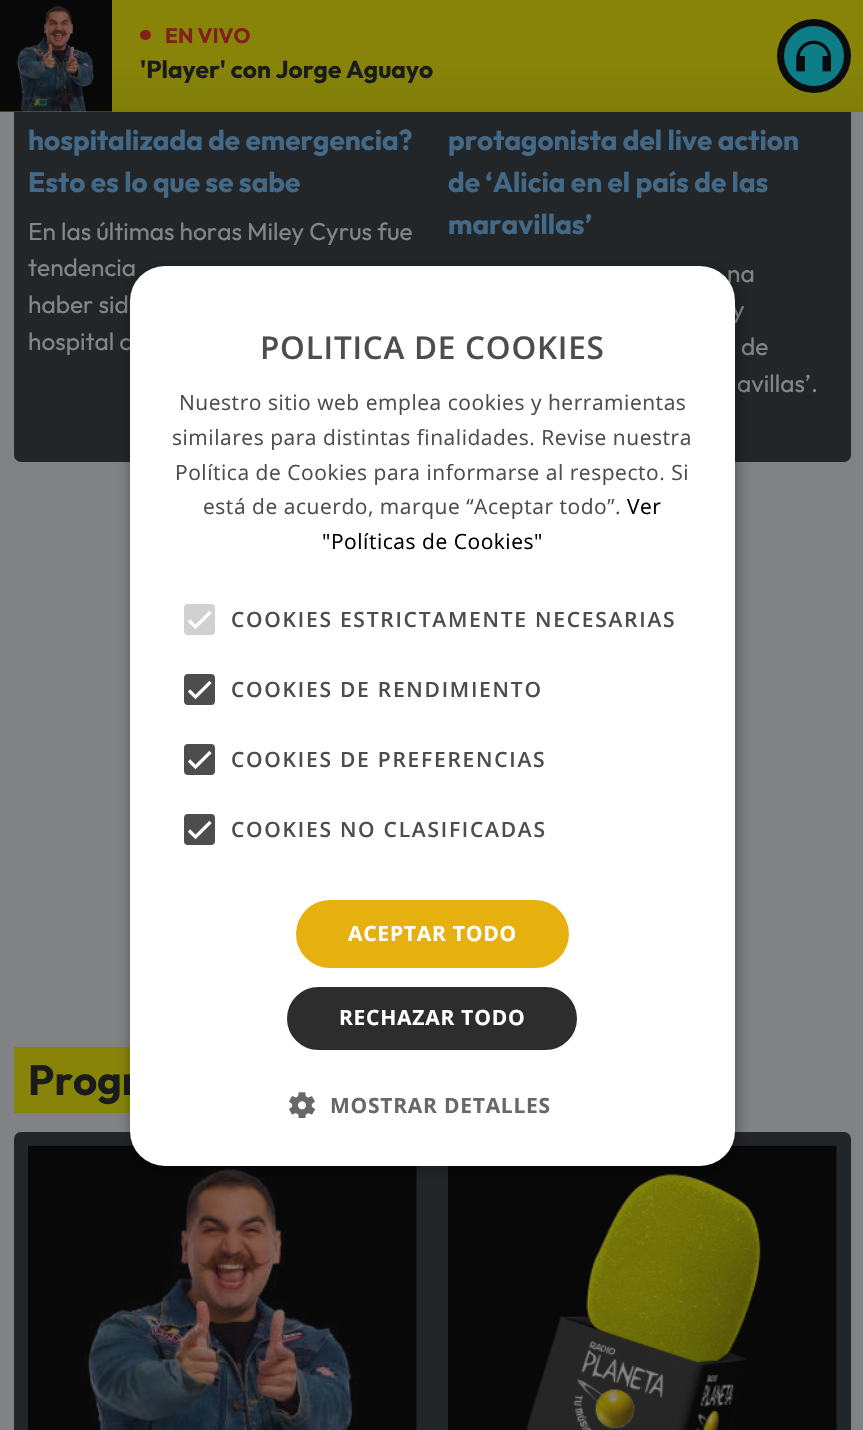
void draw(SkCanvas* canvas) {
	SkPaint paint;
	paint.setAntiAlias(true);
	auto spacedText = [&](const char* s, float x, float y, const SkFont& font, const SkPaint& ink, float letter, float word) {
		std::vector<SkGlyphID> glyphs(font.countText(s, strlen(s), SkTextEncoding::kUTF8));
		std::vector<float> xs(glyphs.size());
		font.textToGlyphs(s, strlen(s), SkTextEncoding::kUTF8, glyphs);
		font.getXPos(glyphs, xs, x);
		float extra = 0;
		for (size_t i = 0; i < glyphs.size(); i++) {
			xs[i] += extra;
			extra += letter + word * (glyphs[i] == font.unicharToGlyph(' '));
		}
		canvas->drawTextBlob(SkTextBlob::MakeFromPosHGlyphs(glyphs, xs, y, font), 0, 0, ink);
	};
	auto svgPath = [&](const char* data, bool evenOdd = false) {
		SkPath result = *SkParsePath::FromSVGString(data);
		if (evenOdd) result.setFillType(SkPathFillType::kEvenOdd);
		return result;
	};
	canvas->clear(0xff818283);
	paint.setColor(0xff232629);
	canvas->drawRoundRect(SkRect::MakeXYWH(14, -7, 837, 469), 7, 7, paint);
	{
		const SkColor colors[] = {0xff878409, 0xff7f7d09};
		const float stops[] = {0.59, 1};
		const SkPoint ends[] = {{432, 0}, {432, 112}};
		paint.setShader(SkGradientShader::MakeLinear(ends, colors, stops, 2, SkTileMode::kClamp));
		paint.setAlpha(255);
	}
	canvas->drawRect(SkRect::MakeXYWH(0, 0, 863, 112), paint);
	canvas->drawImageRect(SkImages::DeferredFromEncodedData(SkData::MakeFromFileName("img1.png")), SkRect::MakeXYWH(0, 0, 112, 112), SkSamplingOptions());
	paint.setShader(nullptr);
	paint.setColor(0xff82201c);
	canvas->drawRoundRect(SkRect::MakeXYWH(140, 30, 11, 10), 5, 5, paint);
	SkFont f1(fontMgr->matchFamilyStyle("Outfit", SkFontStyle::Bold()), 21);
	f1.setSubpixel(true);
	canvas->drawString("EN VIVO", 165, 43, f1, paint);
	SkFont f2(fontMgr->matchFamilyStyle("Outfit", SkFontStyle::Bold()), 24.5);
	f2.setSubpixel(true);
	paint.setColor(0xff191b1d);
	canvas->drawString("'Player' con Jorge Aguayo", 140, 78, f2, paint);
	paint.setColor(0xff0a0b0c);
	canvas->drawCircle(814, 56, 37, paint);
	paint.setColor(0xff0d7e88);
	canvas->drawCircle(814, 56, 30, paint);
	canvas->drawImageRect(SkImages::DeferredFromEncodedData(SkData::MakeFromFileName("img2.png")), SkRect::MakeXYWH(796, 40, 35, 32), SkSamplingOptions());
	SkFont f3(fontMgr->matchFamilyStyle("Outfit", SkFontStyle::Bold()), 28);
	f3.setSubpixel(true);
	paint.setColor(0xff436987);
	canvas->drawString("hospitalizada de emergencia?", 28, 150, f3, paint);
	canvas->drawString("Esto es lo que se sabe", 28, 192, f3, paint);
	SkFont f4(fontMgr->matchFamilyStyle("Outfit", SkFontStyle::Normal()), 24.5);
	f4.setSubpixel(true);
	paint.setColor(0xff858586);
	canvas->drawString("En las últimas horas Miley Cyrus fue", 28, 240, f4, paint);
	canvas->drawString("tendencia", 28, 276, f4, paint);
	canvas->drawString("haber sid", 28, 313, f4, paint);
	canvas->drawString("hospital c", 28, 350, f4, paint);
	paint.setColor(0xff436987);
	canvas->drawString("protagonista del live action", 448, 150, f3, paint);
	canvas->drawString("de ‘Alicia en el país de las", 448, 192, f3, paint);
	canvas->drawString("maravillas’", 448, 234, f3, paint);
	paint.setColor(0xff858586);
	canvas->drawString("na", 727, 282, f4, paint);
	canvas->drawString("y", 732, 318, f4, paint);
	canvas->drawString("de", 741, 355, f4, paint);
	canvas->drawString("avillas’.", 737, 392, f4, paint);
	paint.setColor(0xff878409);
	canvas->drawRect(SkRect::MakeXYWH(14, 1047, 116, 66), paint);
	SkFont f5(fontMgr->matchFamilyStyle("Outfit", SkFontStyle::Bold()), 42);
	f5.setSubpixel(true);
	paint.setColor(0xff191b1d);
	canvas->drawString("Progr", 28, 1095, f5, paint);
	paint.setColor(0xff232629);
	canvas->drawRoundRect(SkRect::MakeXYWH(14, 1132, 837, 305), 7, 7, paint);
	canvas->drawImageRect(SkImages::DeferredFromEncodedData(SkData::MakeFromFileName("img3.png")), SkRect::MakeXYWH(28, 1145, 389, 285), SkSamplingOptions());
	canvas->drawImageRect(SkImages::DeferredFromEncodedData(SkData::MakeFromFileName("img4.png")), SkRect::MakeXYWH(448, 1145, 389, 285), SkSamplingOptions());
	paint.setColor(0x59000000);
	paint.setMaskFilter(SkMaskFilter::MakeBlur(kNormal_SkBlurStyle, 7));
	canvas->drawRoundRect(SkRect::MakeXYWH(131, 270, 606, 899), 35, 35, paint);
	paint.setMaskFilter(nullptr);
	paint.setColor(0xffffffff);
	canvas->drawRoundRect(SkRect::MakeXYWH(130, 266, 605, 900), 35, 35, paint);
	SkFont f6(fontMgr->matchFamilyStyle("Open Sans", SkFontStyle(600, SkFontStyle::kNormal_Width, SkFontStyle::kUpright_Slant)), 31.5);
	f6.setSubpixel(true);
	paint.setColor(0xff4d4d4d);
	spacedText("POLITICA DE COOKIES", 260, 359, f6, paint, 0.75, 0);
	SkFont f7(fontMgr->matchFamilyStyle("Open Sans", SkFontStyle::Normal()), 21);
	f7.setSubpixel(true);
	spacedText("Nuestro sitio web emplea cookies y herramientas", 179, 410, f7, paint, 0.53, 0);
	spacedText("similares para distintas finalidades. Revise nuestra", 172, 445, f7, paint, 0.53, 0);
	spacedText("Política de Cookies para informarse al respecto. Si", 175, 480, f7, paint, 0.53, 0);
	spacedText("está de acuerdo, marque “Aceptar todo”.", 203, 514, f7, paint, 0.53, 0);
	paint.setColor(0xff000000);
	spacedText("Ver", 627, 514, f7, paint, 0.53, 0);
	spacedText("\"Políticas de Cookies\"", 322, 549, f7, paint, 0.53, 0);
	paint.setColor(0xffd1d1d1);
	canvas->drawRoundRect(SkRect::MakeXYWH(184, 604, 31, 31), 4, 4, paint);
	paint.setStroke(true);
	paint.setStrokeWidth(3.2);
	paint.setColor(0xffffffff);
	canvas->drawPath(svgPath("M189 620.5L195.5 627L210.5 612"), paint);
	SkFont f8(fontMgr->matchFamilyStyle("Open Sans", SkFontStyle(600, SkFontStyle::kNormal_Width, SkFontStyle::kUpright_Slant)), 21);
	f8.setSubpixel(true);
	paint.setStroke(false);
	paint.setColor(0xff4d4d4d);
	spacedText("COOKIES ESTRICTAMENTE NECESARIAS", 231, 627, f8, paint, 1.75, 0);
	canvas->drawRoundRect(SkRect::MakeXYWH(186, 676, 27, 27), 2, 2, paint);
	paint.setStroke(true);
	paint.setStrokeWidth(4);
	canvas->drawRoundRect(SkRect::MakeXYWH(186, 676, 27, 27), 2, 2, paint);
	paint.setStrokeWidth(3.2);
	paint.setColor(0xffffffff);
	canvas->drawPath(svgPath("M189 690.5L195.5 697L210.5 682"), paint);
	paint.setStroke(false);
	paint.setColor(0xff4d4d4d);
	spacedText("COOKIES DE RENDIMIENTO", 231, 697, f8, paint, 1.75, 0);
	canvas->drawRoundRect(SkRect::MakeXYWH(186, 746, 27, 27), 2, 2, paint);
	paint.setStroke(true);
	paint.setStrokeWidth(4);
	canvas->drawRoundRect(SkRect::MakeXYWH(186, 746, 27, 27), 2, 2, paint);
	paint.setStrokeWidth(3.2);
	paint.setColor(0xffffffff);
	canvas->drawPath(svgPath("M189 760.5L195.5 767L210.5 752"), paint);
	paint.setStroke(false);
	paint.setColor(0xff4d4d4d);
	spacedText("COOKIES DE PREFERENCIAS", 231, 767, f8, paint, 1.75, 0);
	canvas->drawRoundRect(SkRect::MakeXYWH(186, 816, 27, 27), 2, 2, paint);
	paint.setStroke(true);
	paint.setStrokeWidth(4);
	canvas->drawRoundRect(SkRect::MakeXYWH(186, 816, 27, 27), 2, 2, paint);
	paint.setStrokeWidth(3.2);
	paint.setColor(0xffffffff);
	canvas->drawPath(svgPath("M189 830.5L195.5 837L210.5 822"), paint);
	paint.setStroke(false);
	paint.setColor(0xff4d4d4d);
	spacedText("COOKIES NO CLASIFICADAS", 231, 837, f8, paint, 1.75, 0);
	paint.setColor(0xffe6b00f);
	canvas->drawRoundRect(SkRect::MakeXYWH(296, 900, 273, 68), 34, 34, paint);
	SkFont f9(fontMgr->matchFamilyStyle("Open Sans", SkFontStyle::Bold()), 21);
	f9.setSubpixel(true);
	paint.setColor(0xffffffff);
	spacedText("ACEPTAR TODO", 348, 941, f9, paint, 0.75, 0);
	paint.setColor(0xff2d2d2d);
	canvas->drawRoundRect(SkRect::MakeXYWH(286, 986, 292, 65), 32.5, 32.5, paint);
	paint.setStroke(true);
	paint.setStrokeWidth(2);
	paint.setColor(0xffffffff);
	canvas->drawRoundRect(SkRect::MakeXYWH(286, 986, 292, 65), 32.5, 32.5, paint);
	paint.setStroke(false);
	spacedText("RECHAZAR TODO", 339, 1025, f9, paint, 0.75, 0);
	canvas->drawImageRect(SkImages::DeferredFromEncodedData(SkData::MakeFromFileName("img5.png")), SkRect::MakeXYWH(289, 1092, 26, 26), SkSamplingOptions());
	paint.setColor(0xff686868);
	spacedText("MOSTRAR DETALLES", 330, 1113, f9, paint, 0.75, 0);
}
